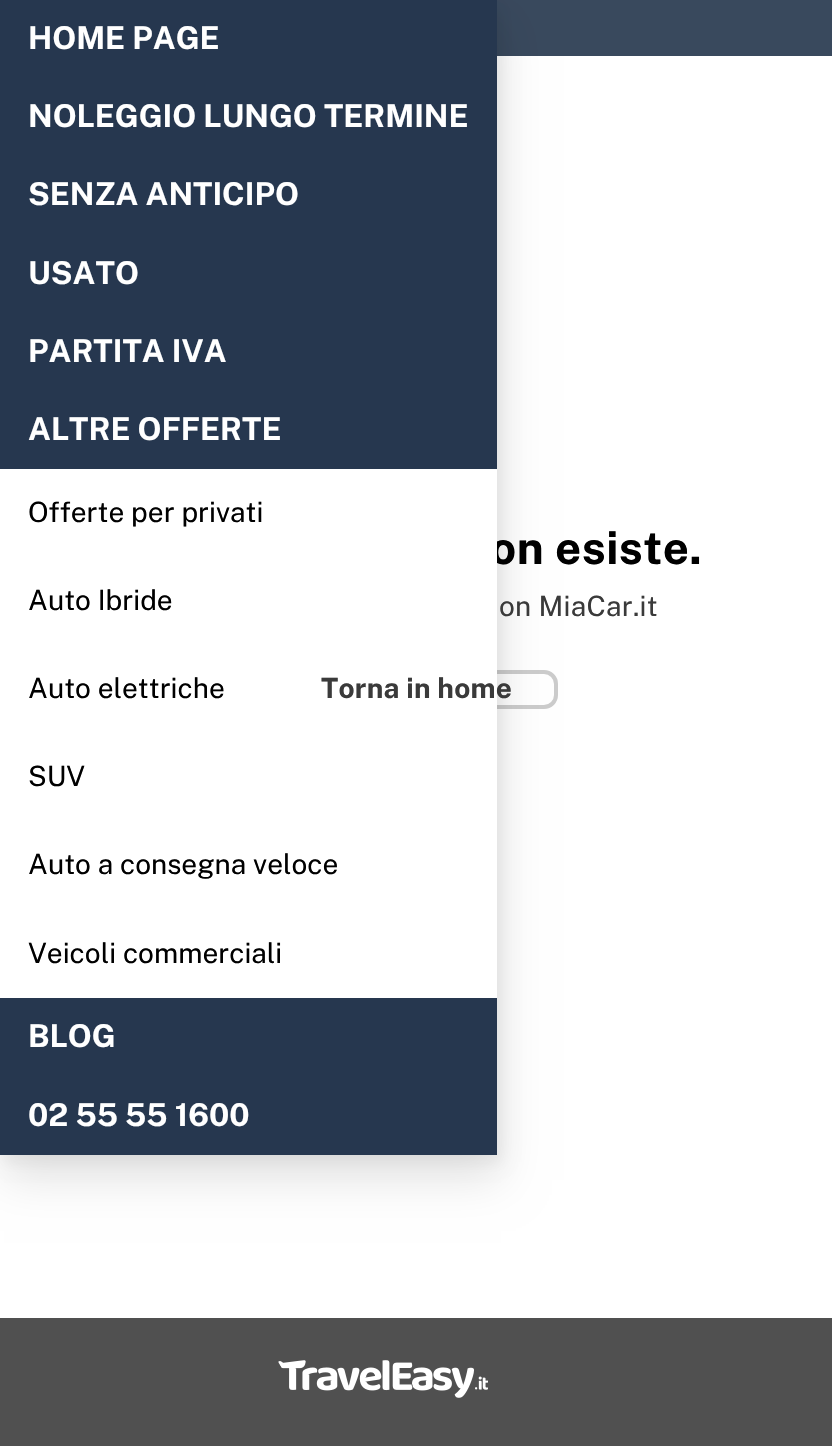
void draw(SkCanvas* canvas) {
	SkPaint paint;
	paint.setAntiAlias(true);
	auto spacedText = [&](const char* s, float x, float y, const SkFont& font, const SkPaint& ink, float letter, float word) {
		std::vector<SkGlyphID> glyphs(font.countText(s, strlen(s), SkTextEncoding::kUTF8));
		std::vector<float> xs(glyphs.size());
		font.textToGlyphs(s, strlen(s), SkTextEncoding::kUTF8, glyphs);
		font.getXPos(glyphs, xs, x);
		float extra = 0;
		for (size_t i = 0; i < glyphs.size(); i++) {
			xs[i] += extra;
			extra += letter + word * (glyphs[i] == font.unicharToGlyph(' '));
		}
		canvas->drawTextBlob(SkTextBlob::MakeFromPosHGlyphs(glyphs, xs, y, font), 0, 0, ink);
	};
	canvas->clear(0xffffffff);
	paint.setColor(0xff39495d);
	canvas->drawRect(SkRect::MakeXYWH(497, 0, 335, 56), paint);
	paint.setStroke(true);
	paint.setStrokeWidth(4);
	paint.setColor(0xffcccccc);
	canvas->drawRoundRect(SkRect::MakeXYWH(277, 672, 279, 35), 12, 12, paint);
	paint.setStroke(false);
	paint.setColor(0x1a000000);
	paint.setMaskFilter(SkMaskFilter::MakeBlur(kNormal_SkBlurStyle, 21));
	canvas->drawRect(SkRect::MakeXYWH(4, 25, 497, 1155), paint);
	paint.setMaskFilter(nullptr);
	paint.setColor(0x0f000000);
	paint.setMaskFilter(SkMaskFilter::MakeBlur(kNormal_SkBlurStyle, 7));
	canvas->drawRect(SkRect::MakeXYWH(4, 7, 497, 1155), paint);
	paint.setMaskFilter(nullptr);
	SkFont f1(fontMgr->matchFamilyStyle("Public Sans", SkFontStyle::Bold()), 45.5);
	f1.setSubpixel(true);
	paint.setColor(0xff000000);
	spacedText("on esiste.", 490, 564, f1, paint, 0.5, 0);
	paint.setColor(0xff26374f);
	canvas->drawRect(SkRect::MakeXYWH(0, 0, 497, 1155), paint);
	SkFont f2(fontMgr->matchFamilyStyle("Public Sans", SkFontStyle::Bold()), 31.5);
	f2.setSubpixel(true);
	paint.setColor(0xffffffff);
	canvas->drawString("HOME PAGE", 28, 49, f2, paint);
	canvas->drawString("NOLEGGIO LUNGO TERMINE", 28, 127, f2, paint);
	canvas->drawString("SENZA ANTICIPO", 28, 205, f2, paint);
	canvas->drawString("USATO", 28, 284, f2, paint);
	canvas->drawString("PARTITA IVA", 28, 362, f2, paint);
	canvas->drawString("ALTRE OFFERTE", 28, 440, f2, paint);
	canvas->drawRect(SkRect::MakeXYWH(0, 469, 497, 529), paint);
	SkFont f3(fontMgr->matchFamilyStyle("Public Sans", SkFontStyle::Normal()), 28);
	f3.setSubpixel(true);
	paint.setColor(0xff000000);
	canvas->drawString("Offerte per privati", 28, 522, f3, paint);
	canvas->drawString("Auto Ibride", 28, 610, f3, paint);
	canvas->drawString("Auto elettriche", 28, 698, f3, paint);
	canvas->drawString("SUV", 28, 786, f3, paint);
	canvas->drawString("Auto a consegna veloce", 28, 874, f3, paint);
	canvas->drawString("Veicoli commerciali", 28, 963, f3, paint);
	paint.setColor(0xffffffff);
	canvas->drawString("BLOG", 28, 1047, f2, paint);
	canvas->drawString("02 55 55 1600", 28, 1126, f2, paint);
	paint.setColor(0xff3a3a3a);
	spacedText("on MiaCar.it", 499, 616, f3, paint, 0.25, 0);
	SkFont f4(fontMgr->matchFamilyStyle("Public Sans", SkFontStyle::Bold()), 28);
	f4.setSubpixel(true);
	spacedText("Torna in home", 321, 698, f4, paint, 0.25, 0);
	paint.setColor(0xff505050);
	canvas->drawRect(SkRect::MakeXYWH(0, 1318, 832, 128), paint);
	canvas->drawImageRect(SkImages::DeferredFromEncodedData(SkData::MakeFromFileName("img1.png")), SkRect::MakeXYWH(278, 1360, 210, 38), SkSamplingOptions());
}
